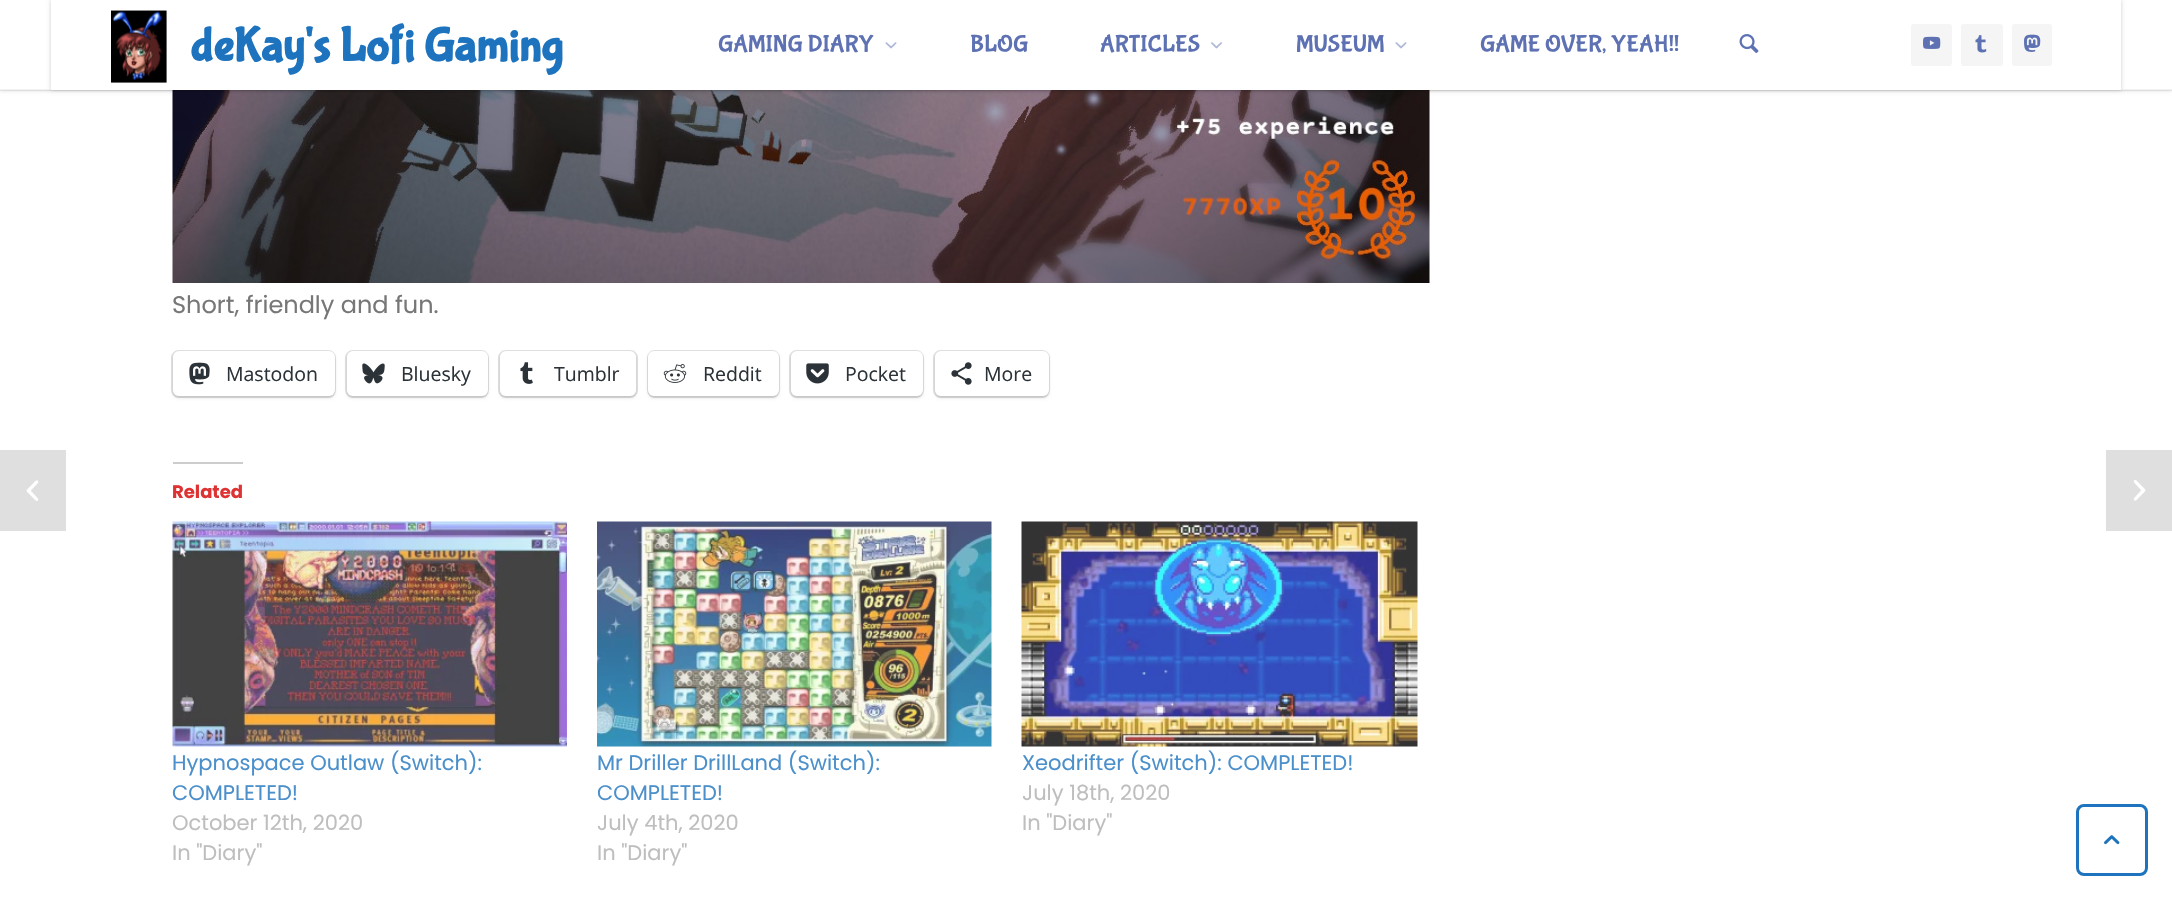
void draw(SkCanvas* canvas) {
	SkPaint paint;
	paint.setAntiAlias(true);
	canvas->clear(0xffffffff);
	canvas->drawImageRect(SkImages::DeferredFromEncodedData(SkData::MakeFromFileName("img8.png")), SkRect::MakeXYWH(172, 90, 1258, 193), SkSamplingOptions());
	paint.setColor(0x33000000);
	paint.setMaskFilter(SkMaskFilter::MakeBlur(kNormal_SkBlurStyle, 2));
	canvas->drawRect(SkRect::MakeXYWH(0, 0, 2172, 90), paint);
	paint.setMaskFilter(nullptr);
	paint.setColor(0xffffffff);
	canvas->drawRect(SkRect::MakeXYWH(0, 0, 2172, 90), paint);
	paint.setColor(0x0d000000);
	canvas->drawRect(SkRect::MakeXYWH(0, 89, 2172, 2), paint);
	paint.setColor(0x33000000);
	paint.setMaskFilter(SkMaskFilter::MakeBlur(kNormal_SkBlurStyle, 2));
	canvas->drawRect(SkRect::MakeXYWH(51, 0, 2070, 90), paint);
	paint.setMaskFilter(nullptr);
	paint.setColor(0xffffffff);
	canvas->drawRect(SkRect::MakeXYWH(51, 0, 2070, 90), paint);
	canvas->drawImageRect(SkImages::DeferredFromEncodedData(SkData::MakeFromFileName("img1.png")), SkRect::MakeXYWH(111, 10, 56, 73), SkSamplingOptions());
	SkFont f1(fontMgr->matchFamilyStyle("Bubblegum Sans", SkFontStyle::Bold()), 48);
	f1.setSubpixel(true);
	paint.setColor(0xff1e73be);
	canvas->drawString("deKay's Lofi Gaming", 190, 60, f1, paint);
	SkFont f2(fontMgr->matchFamilyStyle("Bubblegum Sans", SkFontStyle::Normal()), 24);
	f2.setSubpixel(true);
	paint.setColor(0xff5d71b3);
	canvas->drawString("GAMING DIARY", 718, 51, f2, paint);
	canvas->drawImageRect(SkImages::DeferredFromEncodedData(SkData::MakeFromFileName("img2.png")), SkRect::MakeXYWH(885, 42, 12, 7), SkSamplingOptions());
	canvas->drawString("BLOG", 970, 51, f2, paint);
	canvas->drawString("ARTICLES", 1100, 51, f2, paint);
	canvas->drawImageRect(SkImages::DeferredFromEncodedData(SkData::MakeFromFileName("img3.png")), SkRect::MakeXYWH(1211, 42, 11, 7), SkSamplingOptions());
	canvas->drawString("MUSEUM", 1296, 51, f2, paint);
	canvas->drawImageRect(SkImages::DeferredFromEncodedData(SkData::MakeFromFileName("img2.png")), SkRect::MakeXYWH(1395, 42, 12, 7), SkSamplingOptions());
	canvas->drawString("GAME OVER, YEAH!!", 1480, 51, f2, paint);
	canvas->drawImageRect(SkImages::DeferredFromEncodedData(SkData::MakeFromFileName("img4.png")), SkRect::MakeXYWH(1739, 34, 20, 19), SkSamplingOptions());
	paint.setColor(0xfff5f5f5);
	canvas->drawRoundRect(SkRect::MakeXYWH(1911, 24, 41, 42), 3, 3, paint);
	canvas->drawImageRect(SkImages::DeferredFromEncodedData(SkData::MakeFromFileName("img5.png")), SkRect::MakeXYWH(1923, 36, 18, 13), SkSamplingOptions());
	canvas->drawRoundRect(SkRect::MakeXYWH(1961, 24, 42, 42), 3, 3, paint);
	canvas->drawImageRect(SkImages::DeferredFromEncodedData(SkData::MakeFromFileName("img6.png")), SkRect::MakeXYWH(1975, 35, 12, 18), SkSamplingOptions());
	canvas->drawRoundRect(SkRect::MakeXYWH(2012, 24, 40, 42), 3, 3, paint);
	canvas->drawImageRect(SkImages::DeferredFromEncodedData(SkData::MakeFromFileName("img7.png")), SkRect::MakeXYWH(2024, 34, 17, 18), SkSamplingOptions());
	SkFont f3(fontMgr->matchFamilyStyle("Poppins", SkFontStyle::Normal()), 24);
	f3.setSubpixel(true);
	paint.setColor(0xff777777);
	canvas->drawString("Short, friendly and fun.", 172, 313, f3, paint);
	paint.setStroke(true);
	paint.setStrokeWidth(2);
	paint.setColor(0xffe0e0e0);
	canvas->drawRoundRect(SkRect::MakeXYWH(172, 351, 163, 46), 7, 7, paint);
	paint.setStroke(false);
	paint.setColor(0x1f000000);
	paint.setMaskFilter(SkMaskFilter::MakeBlur(kNormal_SkBlurStyle, 1.5));
	canvas->drawRoundRect(SkRect::MakeXYWH(173, 353, 162, 45), 6, 6, paint);
	paint.setMaskFilter(nullptr);
	paint.setColor(0xffffffff);
	canvas->drawRoundRect(SkRect::MakeXYWH(173, 351, 162, 45), 6, 6, paint);
	canvas->drawImageRect(SkImages::DeferredFromEncodedData(SkData::MakeFromFileName("img9.png")), SkRect::MakeXYWH(189, 362, 21, 23), SkSamplingOptions());
	SkFont f4(fontMgr->matchFamilyStyle("Open Sans", SkFontStyle::Normal()), 19.5);
	f4.setSubpixel(true);
	paint.setColor(0xff2c3338);
	canvas->drawString("Mastodon", 226, 381, f4, paint);
	paint.setStroke(true);
	paint.setColor(0xffe0e0e0);
	canvas->drawRoundRect(SkRect::MakeXYWH(346, 351, 142, 46), 7, 7, paint);
	paint.setStroke(false);
	paint.setColor(0x1f000000);
	paint.setMaskFilter(SkMaskFilter::MakeBlur(kNormal_SkBlurStyle, 1.5));
	canvas->drawRoundRect(SkRect::MakeXYWH(347, 353, 141, 45), 6, 6, paint);
	paint.setMaskFilter(nullptr);
	paint.setColor(0xffffffff);
	canvas->drawRoundRect(SkRect::MakeXYWH(347, 351, 141, 45), 6, 6, paint);
	canvas->drawImageRect(SkImages::DeferredFromEncodedData(SkData::MakeFromFileName("img10.png")), SkRect::MakeXYWH(362, 363, 23, 21), SkSamplingOptions());
	paint.setColor(0xff2c3338);
	canvas->drawString("Bluesky", 401, 381, f4, paint);
	paint.setStroke(true);
	paint.setColor(0xffe0e0e0);
	canvas->drawRoundRect(SkRect::MakeXYWH(499, 351, 138, 46), 7, 7, paint);
	paint.setStroke(false);
	paint.setColor(0x1f000000);
	paint.setMaskFilter(SkMaskFilter::MakeBlur(kNormal_SkBlurStyle, 1.5));
	canvas->drawRoundRect(SkRect::MakeXYWH(500, 353, 136, 45), 6, 6, paint);
	paint.setMaskFilter(nullptr);
	paint.setColor(0xffffffff);
	canvas->drawRoundRect(SkRect::MakeXYWH(500, 351, 136, 45), 6, 6, paint);
	canvas->drawImageRect(SkImages::DeferredFromEncodedData(SkData::MakeFromFileName("img11.png")), SkRect::MakeXYWH(520, 362, 13, 22), SkSamplingOptions());
	paint.setColor(0xff2c3338);
	canvas->drawString("Tumblr", 554, 381, f4, paint);
	paint.setStroke(true);
	paint.setColor(0xffe0e0e0);
	canvas->drawRoundRect(SkRect::MakeXYWH(648, 351, 131, 46), 7, 7, paint);
	paint.setStroke(false);
	paint.setColor(0x1f000000);
	paint.setMaskFilter(SkMaskFilter::MakeBlur(kNormal_SkBlurStyle, 1.5));
	canvas->drawRoundRect(SkRect::MakeXYWH(648, 353, 131, 45), 6, 6, paint);
	paint.setMaskFilter(nullptr);
	paint.setColor(0xffffffff);
	canvas->drawRoundRect(SkRect::MakeXYWH(648, 351, 131, 45), 6, 6, paint);
	canvas->drawImageRect(SkImages::DeferredFromEncodedData(SkData::MakeFromFileName("img12.png")), SkRect::MakeXYWH(663, 364, 24, 19), SkSamplingOptions());
	paint.setColor(0xff2c3338);
	canvas->drawString("Reddit", 703, 381, f4, paint);
	paint.setStroke(true);
	paint.setColor(0xffe0e0e0);
	canvas->drawRoundRect(SkRect::MakeXYWH(790, 351, 133, 46), 7, 7, paint);
	paint.setStroke(false);
	paint.setColor(0x1f000000);
	paint.setMaskFilter(SkMaskFilter::MakeBlur(kNormal_SkBlurStyle, 1.5));
	canvas->drawRoundRect(SkRect::MakeXYWH(791, 353, 132, 45), 6, 6, paint);
	paint.setMaskFilter(nullptr);
	paint.setColor(0xffffffff);
	canvas->drawRoundRect(SkRect::MakeXYWH(791, 351, 132, 45), 6, 6, paint);
	canvas->drawImageRect(SkImages::DeferredFromEncodedData(SkData::MakeFromFileName("img13.png")), SkRect::MakeXYWH(806, 363, 23, 21), SkSamplingOptions());
	paint.setColor(0xff2c3338);
	canvas->drawString("Pocket", 845, 381, f4, paint);
	paint.setStroke(true);
	paint.setColor(0xffe0e0e0);
	canvas->drawRoundRect(SkRect::MakeXYWH(934, 351, 115, 46), 7, 7, paint);
	paint.setStroke(false);
	paint.setColor(0x1f000000);
	paint.setMaskFilter(SkMaskFilter::MakeBlur(kNormal_SkBlurStyle, 1.5));
	canvas->drawRoundRect(SkRect::MakeXYWH(935, 353, 114, 45), 6, 6, paint);
	paint.setMaskFilter(nullptr);
	paint.setColor(0xffffffff);
	canvas->drawRoundRect(SkRect::MakeXYWH(935, 351, 114, 45), 6, 6, paint);
	canvas->drawImageRect(SkImages::DeferredFromEncodedData(SkData::MakeFromFileName("img14.png")), SkRect::MakeXYWH(951, 362, 21, 23), SkSamplingOptions());
	paint.setColor(0xff2c3338);
	canvas->drawString("More", 984, 381, f4, paint);
	paint.setColor(0xffcccccc);
	canvas->drawRect(SkRect::MakeXYWH(173, 462, 70, 2), paint);
	SkFont f5(fontMgr->matchFamilyStyle("Poppins", SkFontStyle::Bold()), 18);
	f5.setSubpixel(true);
	paint.setColor(0xffdd3333);
	canvas->drawString("Related", 172, 498, f5, paint);
	canvas->drawImageRect(SkImages::DeferredFromEncodedData(SkData::MakeFromFileName("img15.png")), SkRect::MakeXYWH(172, 521, 395, 226), SkSamplingOptions());
	SkFont f6(fontMgr->matchFamilyStyle("Poppins", SkFontStyle::Normal()), 21);
	f6.setSubpixel(true);
	paint.setColor(0xff4b8fcb);
	canvas->drawString("Hypnospace Outlaw (Switch):", 172, 770, f6, paint);
	canvas->drawString("COMPLETED!", 172, 800, f6, paint);
	paint.setColor(0xffbebebe);
	canvas->drawString("October 12th, 2020", 172, 830, f6, paint);
	canvas->drawString("In \"Diary\"", 172, 860, f6, paint);
	canvas->drawImageRect(SkImages::DeferredFromEncodedData(SkData::MakeFromFileName("img16.png")), SkRect::MakeXYWH(597, 521, 395, 226), SkSamplingOptions());
	paint.setColor(0xff4b8fcb);
	canvas->drawString("Mr Driller DrillLand (Switch):", 597, 770, f6, paint);
	canvas->drawString("COMPLETED!", 597, 800, f6, paint);
	paint.setColor(0xffbebebe);
	canvas->drawString("July 4th, 2020", 597, 830, f6, paint);
	canvas->drawString("In \"Diary\"", 597, 860, f6, paint);
	canvas->drawImageRect(SkImages::DeferredFromEncodedData(SkData::MakeFromFileName("img17.png")), SkRect::MakeXYWH(1021, 521, 397, 226), SkSamplingOptions());
	paint.setColor(0xff4b8fcb);
	canvas->drawString("Xeodrifter (Switch): COMPLETED!", 1022, 770, f6, paint);
	paint.setColor(0xffbebebe);
	canvas->drawString("July 18th, 2020", 1022, 800, f6, paint);
	canvas->drawString("In \"Diary\"", 1022, 830, f6, paint);
	paint.setColor(0xffdfdfdf);
	canvas->drawRect(SkRect::MakeXYWH(0, 450, 66, 81), paint);
	canvas->drawImageRect(SkImages::DeferredFromEncodedData(SkData::MakeFromFileName("img18.png")), SkRect::MakeXYWH(26, 480, 13, 21), SkSamplingOptions());
	canvas->drawRect(SkRect::MakeXYWH(2106, 450, 66, 81), paint);
	canvas->drawImageRect(SkImages::DeferredFromEncodedData(SkData::MakeFromFileName("img19.png")), SkRect::MakeXYWH(2133, 480, 13, 21), SkSamplingOptions());
	paint.setStroke(true);
	paint.setStrokeWidth(3);
	paint.setColor(0xff1e73be);
	canvas->drawRoundRect(SkRect::MakeXYWH(2077.5, 805.5, 69, 69), 6.5, 6.5, paint);
	canvas->drawImageRect(SkImages::DeferredFromEncodedData(SkData::MakeFromFileName("img20.png")), SkRect::MakeXYWH(2104, 835, 16, 10), SkSamplingOptions());
}
